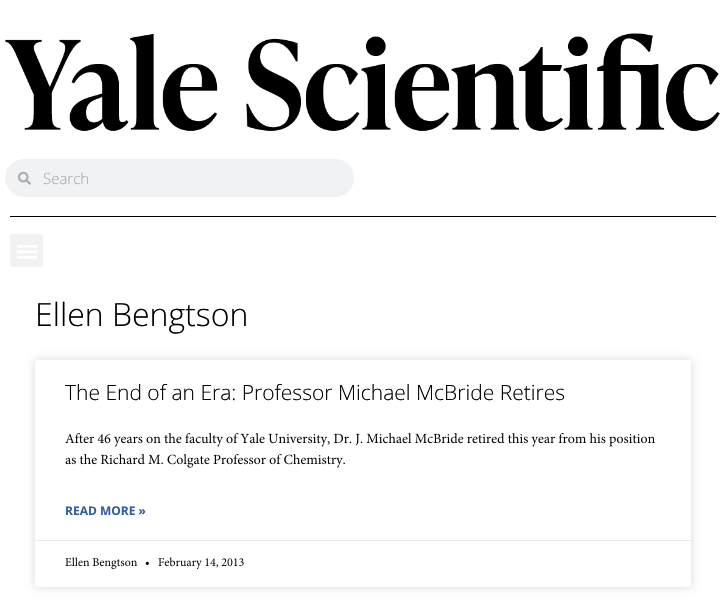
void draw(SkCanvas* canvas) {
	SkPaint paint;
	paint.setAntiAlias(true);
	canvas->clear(0xffffffff);
	canvas->drawImageRect(SkImages::DeferredFromEncodedData(SkData::MakeFromFileName("img1.png")), SkRect::MakeXYWH(5, 33, 715, 99), SkSamplingOptions());
	paint.setColor(0xfff1f2f3);
	canvas->drawRoundRect(SkRect::MakeXYWH(5, 159, 349, 38), 19, 19, paint);
	canvas->drawImageRect(SkImages::DeferredFromEncodedData(SkData::MakeFromFileName("img2.png")), SkRect::MakeXYWH(18, 171, 13, 14), SkSamplingOptions());
	SkFont f1(fontMgr->matchFamilyStyle("Open Sans", SkFontStyle(300, SkFontStyle::kNormal_Width, SkFontStyle::kUpright_Slant)), 15);
	f1.setSubpixel(true);
	paint.setColor(0xffaaaaaa);
	canvas->drawString("Search", 43, 184, f1, paint);
	paint.setColor(0xff000000);
	canvas->drawRect(SkRect::MakeXYWH(10, 216, 706, 1), paint);
	paint.setColor(0xfff2f2f2);
	canvas->drawRoundRect(SkRect::MakeXYWH(10, 234, 33, 33), 3, 3, paint);
	canvas->drawImageRect(SkImages::DeferredFromEncodedData(SkData::MakeFromFileName("img3.png")), SkRect::MakeXYWH(17, 245, 20, 14), SkSamplingOptions());
	SkFont f2(fontMgr->matchFamilyStyle("Open Sans", SkFontStyle(300, SkFontStyle::kNormal_Width, SkFontStyle::kUpright_Slant)), 32);
	f2.setSubpixel(true);
	paint.setColor(0xff000000);
	canvas->drawString("Ellen Bengtson", 35, 326, f2, paint);
	paint.setColor(0x26000000);
	paint.setMaskFilter(SkMaskFilter::MakeBlur(kNormal_SkBlurStyle, 5));
	canvas->drawRoundRect(SkRect::MakeXYWH(35, 360, 656, 227), 3, 3, paint);
	paint.setMaskFilter(nullptr);
	paint.setColor(0xffffffff);
	canvas->drawRoundRect(SkRect::MakeXYWH(35, 360, 656, 227), 3, 3, paint);
	SkFont f3(fontMgr->matchFamilyStyle("Open Sans", SkFontStyle(300, SkFontStyle::kNormal_Width, SkFontStyle::kUpright_Slant)), 21);
	f3.setSubpixel(true);
	paint.setColor(0xff000000);
	canvas->drawString("The End of an Era: Professor Michael McBride Retires", 65, 400, f3, paint);
	canvas->drawImageRect(SkImages::DeferredFromEncodedData(SkData::MakeFromFileName("img4.png")), SkRect::MakeXYWH(65, 433, 590, 14), SkSamplingOptions());
	canvas->drawImageRect(SkImages::DeferredFromEncodedData(SkData::MakeFromFileName("img5.png")), SkRect::MakeXYWH(65, 454, 280, 14), SkSamplingOptions());
	SkFont f4(fontMgr->matchFamilyStyle("Open Sans", SkFontStyle::Bold()), 12);
	f4.setSubpixel(true);
	paint.setColor(0xff315fa4);
	canvas->drawString("READ MORE »", 65, 515, f4, paint);
	paint.setColor(0xffeaeaea);
	canvas->drawRect(SkRect::MakeXYWH(35, 540, 656, 1), paint);
	canvas->drawImageRect(SkImages::DeferredFromEncodedData(SkData::MakeFromFileName("img6.png")), SkRect::MakeXYWH(65, 557, 73, 13), SkSamplingOptions());
	canvas->drawImageRect(SkImages::DeferredFromEncodedData(SkData::MakeFromFileName("img7.png")), SkRect::MakeXYWH(145, 561, 4, 4), SkSamplingOptions());
	canvas->drawImageRect(SkImages::DeferredFromEncodedData(SkData::MakeFromFileName("img8.png")), SkRect::MakeXYWH(158, 557, 86, 12), SkSamplingOptions());
}
